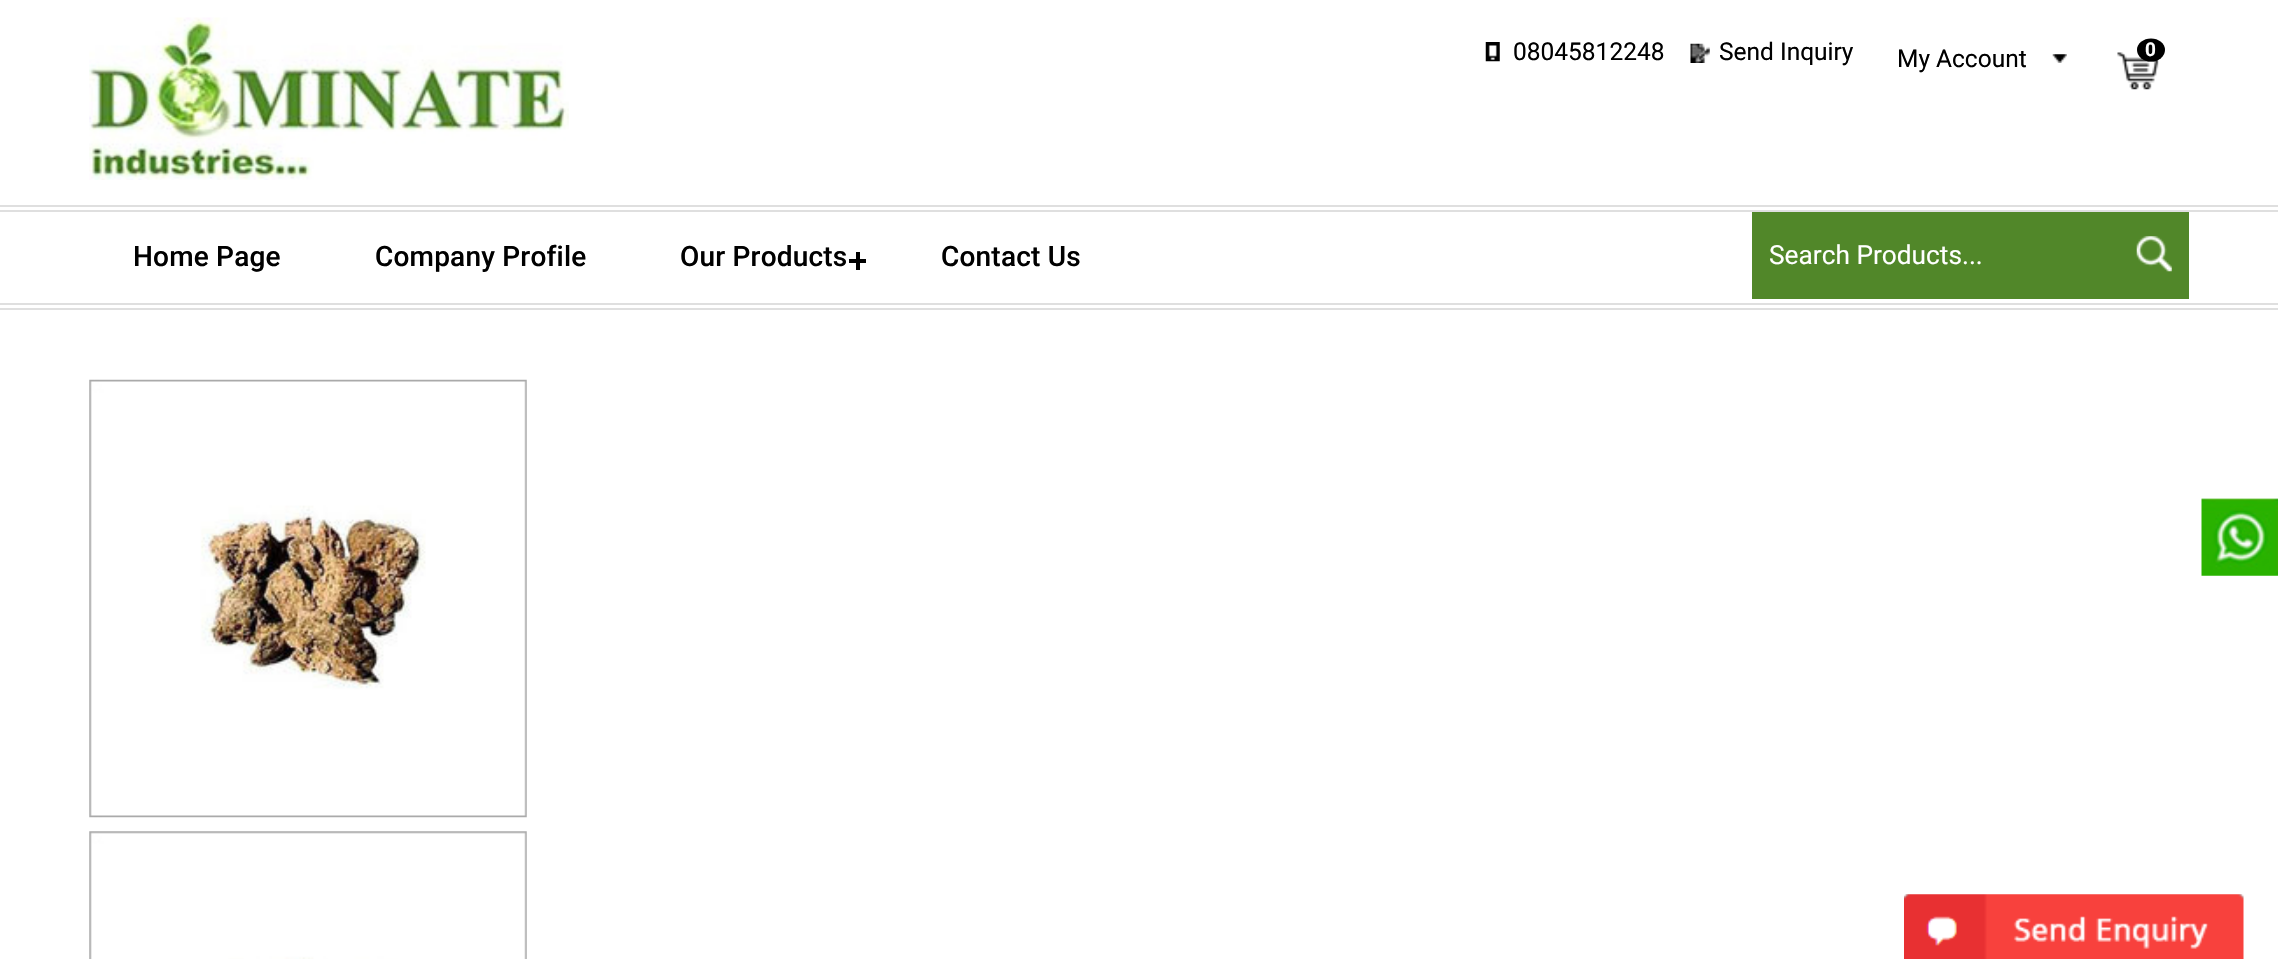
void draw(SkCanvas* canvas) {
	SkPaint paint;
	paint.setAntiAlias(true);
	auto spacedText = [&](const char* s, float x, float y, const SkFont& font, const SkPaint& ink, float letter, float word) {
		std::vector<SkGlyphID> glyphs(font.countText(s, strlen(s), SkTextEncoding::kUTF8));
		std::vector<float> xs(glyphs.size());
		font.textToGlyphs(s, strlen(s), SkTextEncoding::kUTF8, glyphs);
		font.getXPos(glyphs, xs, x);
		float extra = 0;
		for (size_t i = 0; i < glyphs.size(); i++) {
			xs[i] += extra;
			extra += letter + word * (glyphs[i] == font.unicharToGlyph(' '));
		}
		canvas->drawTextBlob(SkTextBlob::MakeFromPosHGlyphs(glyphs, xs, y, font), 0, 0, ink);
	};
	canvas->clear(0xffffffff);
	canvas->drawImageRect(SkImages::DeferredFromEncodedData(SkData::MakeFromFileName("img1.png")), SkRect::MakeXYWH(89, 17, 480, 163), SkSamplingOptions());
	canvas->drawImageRect(SkImages::DeferredFromEncodedData(SkData::MakeFromFileName("img2.png")), SkRect::MakeXYWH(1485, 42, 15, 20), SkSamplingOptions());
	SkFont f1(fontMgr->matchFamilyStyle("Roboto", SkFontStyle::Normal()), 24.5);
	f1.setSubpixel(true);
	paint.setColor(0xff000000);
	canvas->drawString("08045812248", 1513, 60, f1, paint);
	canvas->drawImageRect(SkImages::DeferredFromEncodedData(SkData::MakeFromFileName("img3.png")), SkRect::MakeXYWH(1690, 43, 20, 20), SkSamplingOptions());
	canvas->drawString("Send Inquiry", 1719, 60, f1, paint);
	canvas->drawImageRect(SkImages::DeferredFromEncodedData(SkData::MakeFromFileName("img4.png")), SkRect::MakeXYWH(2052, 54, 15, 9), SkSamplingOptions());
	canvas->drawString("My Account", 1897, 67, f1, paint);
	canvas->drawImageRect(SkImages::DeferredFromEncodedData(SkData::MakeFromFileName("img5.png")), SkRect::MakeXYWH(2117, 52, 42, 38), SkSamplingOptions());
	canvas->drawOval(SkRect::MakeXYWH(2137, 38.5, 28, 23), paint);
	SkFont f2(fontMgr->matchFamilyStyle("Roboto", SkFontStyle::Bold()), 19);
	f2.setSubpixel(true);
	paint.setColor(0xffffffff);
	canvas->drawString("0", 2145, 56, f2, paint);
	paint.setColor(0xffdfdfdf);
	canvas->drawRect(SkRect::MakeXYWH(0, 205, 2278, 2), paint);
	canvas->drawRect(SkRect::MakeXYWH(0, 210, 2278, 2), paint);
	canvas->drawRect(SkRect::MakeXYWH(0, 303, 2278, 2), paint);
	canvas->drawRect(SkRect::MakeXYWH(0, 308, 2278, 2), paint);
	SkFont f3(fontMgr->matchFamilyStyle("Roboto", SkFontStyle(500, SkFontStyle::kNormal_Width, SkFontStyle::kUpright_Slant)), 28);
	f3.setSubpixel(true);
	paint.setColor(0xff000000);
	spacedText("Home Page", 133, 266, f3, paint, 0.2, 0);
	spacedText("Company Profile", 375, 266, f3, paint, 0.2, 0);
	spacedText("Our Products", 680, 266, f3, paint, 0.2, 0);
	canvas->drawRect(SkRect::MakeXYWH(849, 259, 17, 4), paint);
	canvas->drawRect(SkRect::MakeXYWH(856, 252, 4, 18), paint);
	spacedText("Contact Us", 941, 266, f3, paint, 0.2, 0);
	paint.setColor(0xff518729);
	canvas->drawRect(SkRect::MakeXYWH(1752, 212, 437, 87), paint);
	SkFont f4(fontMgr->matchFamilyStyle("Roboto", SkFontStyle::Normal()), 26.25);
	f4.setSubpixel(true);
	paint.setColor(0xffffffff);
	canvas->drawString("Search Products...", 1769, 264, f4, paint);
	canvas->drawImageRect(SkImages::DeferredFromEncodedData(SkData::MakeFromFileName("img6.png")), SkRect::MakeXYWH(2136, 236, 36, 36), SkSamplingOptions());
	canvas->drawImageRect(SkImages::DeferredFromEncodedData(SkData::MakeFromFileName("img7.png")), SkRect::MakeXYWH(89, 379, 438, 439), SkSamplingOptions());
	canvas->drawImageRect(SkImages::DeferredFromEncodedData(SkData::MakeFromFileName("img8.png")), SkRect::MakeXYWH(89, 831, 438, 128), SkSamplingOptions());
	canvas->drawImageRect(SkImages::DeferredFromEncodedData(SkData::MakeFromFileName("img9.png")), SkRect::MakeXYWH(2201, 498, 77, 78), SkSamplingOptions());
	canvas->drawImageRect(SkImages::DeferredFromEncodedData(SkData::MakeFromFileName("img10.png")), SkRect::MakeXYWH(1904, 894, 340, 65), SkSamplingOptions());
}
